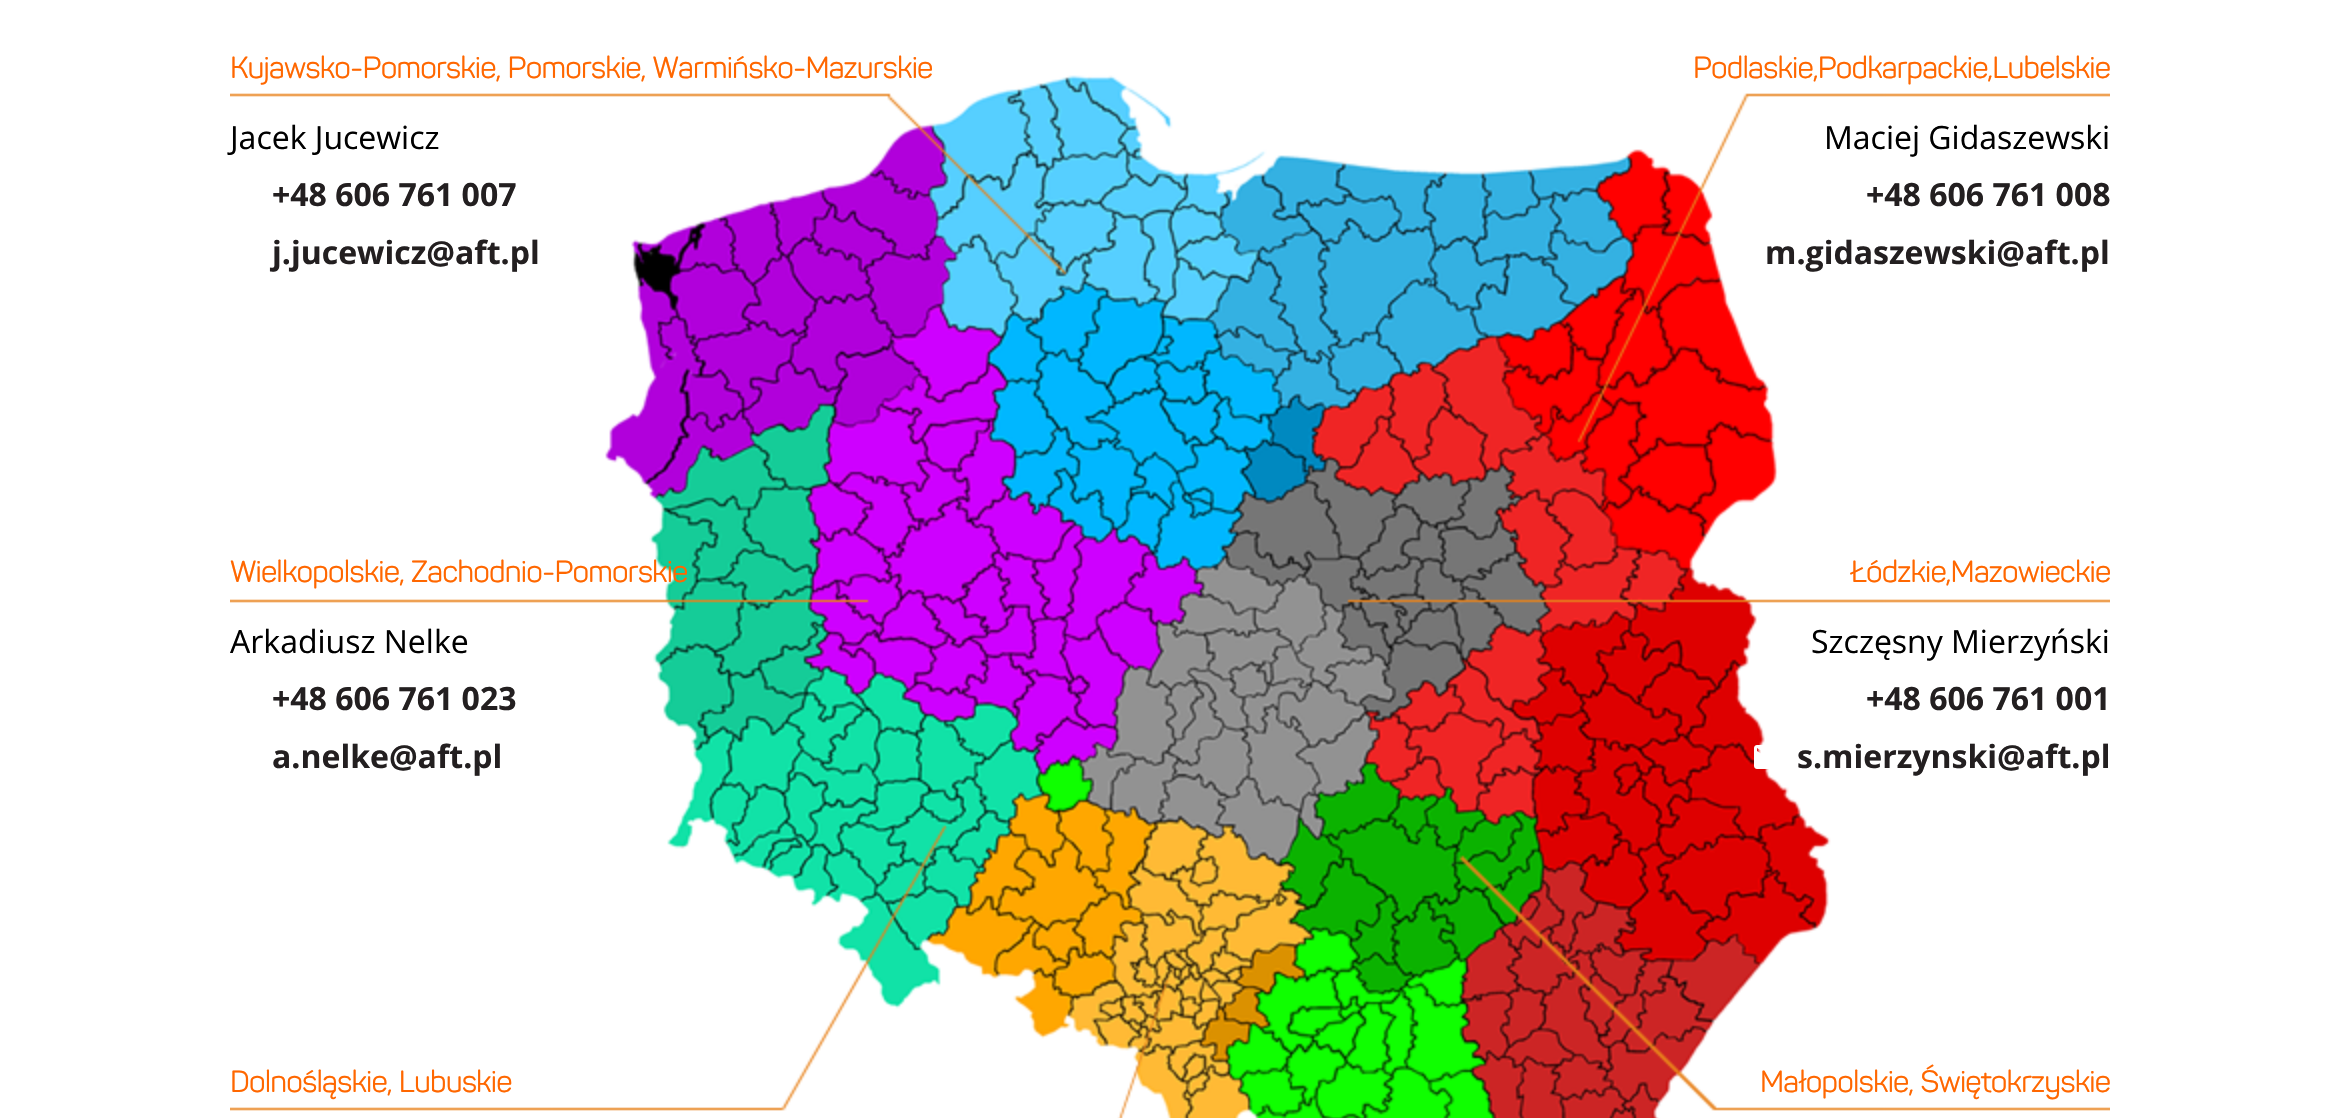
void draw(SkCanvas* canvas) {
	SkPaint paint;
	paint.setAntiAlias(true);
	canvas->clear(0xffffffff);
	canvas->drawImageRect(SkImages::DeferredFromEncodedData(SkData::MakeFromFileName("img1.png")), SkRect::MakeXYWH(230, 75, 1880, 1043), SkSamplingOptions());
	SkFont f1(fontMgr->matchFamilyStyle("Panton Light", SkFontStyle::Bold()), 29.3);
	f1.setSubpixel(true);
	paint.setColor(0xffff6700);
	canvas->drawString("Kujawsko-Pomorskie, Pomorskie, Warmińsko-Mazurskie", 230, 78, f1, paint);
	SkFont f2(fontMgr->matchFamilyStyle("Open Sans", SkFontStyle::Normal()), 32);
	f2.setSubpixel(true);
	paint.setColor(0xff000000);
	canvas->drawString("Jacek Jucewicz", 230, 149, f2, paint);
	SkFont f3(fontMgr->matchFamilyStyle("Open Sans", SkFontStyle::Bold()), 32);
	f3.setSubpixel(true);
	paint.setColor(0xff231f20);
	canvas->drawString("+48 606 761 007", 272, 206, f3, paint);
	canvas->drawString("j.jucewicz@aft.pl", 272, 264, f3, paint);
	paint.setColor(0xffff6700);
	canvas->drawString("Podlaskie,Podkarpackie,Lubelskie", 1693, 78, f1, paint);
	paint.setColor(0xff000000);
	canvas->drawString("Maciej Gidaszewski", 1824, 149, f2, paint);
	paint.setColor(0xff231f20);
	canvas->drawString("+48 606 761 008", 1866, 206, f3, paint);
	canvas->drawString("m.gidaszewski@aft.pl", 1765, 264, f3, paint);
	paint.setColor(0xffff6700);
	canvas->drawString("Wielkopolskie, Zachodnio-Pomorskie", 230, 582, f1, paint);
	paint.setColor(0xff000000);
	canvas->drawString("Arkadiusz Nelke", 230, 653, f2, paint);
	paint.setColor(0xff231f20);
	canvas->drawString("+48 606 761 023", 272, 710, f3, paint);
	canvas->drawString("a.nelke@aft.pl", 272, 768, f3, paint);
	paint.setColor(0xffff6700);
	canvas->drawString("Łódzkie,Mazowieckie", 1850, 582, f1, paint);
	paint.setColor(0xff000000);
	canvas->drawString("Szczęsny Mierzyński", 1811, 653, f2, paint);
	paint.setColor(0xff231f20);
	canvas->drawString("+48 606 761 001", 1866, 710, f3, paint);
	canvas->drawImageRect(SkImages::DeferredFromEncodedData(SkData::MakeFromFileName("img2.png")), SkRect::MakeXYWH(1754, 745, 17, 24), SkSamplingOptions());
	canvas->drawString("s.mierzynski@aft.pl", 1797, 768, f3, paint);
	paint.setColor(0xffff6700);
	canvas->drawString("Dolnośląskie, Lubuskie", 230, 1092, f1, paint);
	canvas->drawString("Małopolskie, Świętokrzyskie", 1760, 1092, f1, paint);
}
